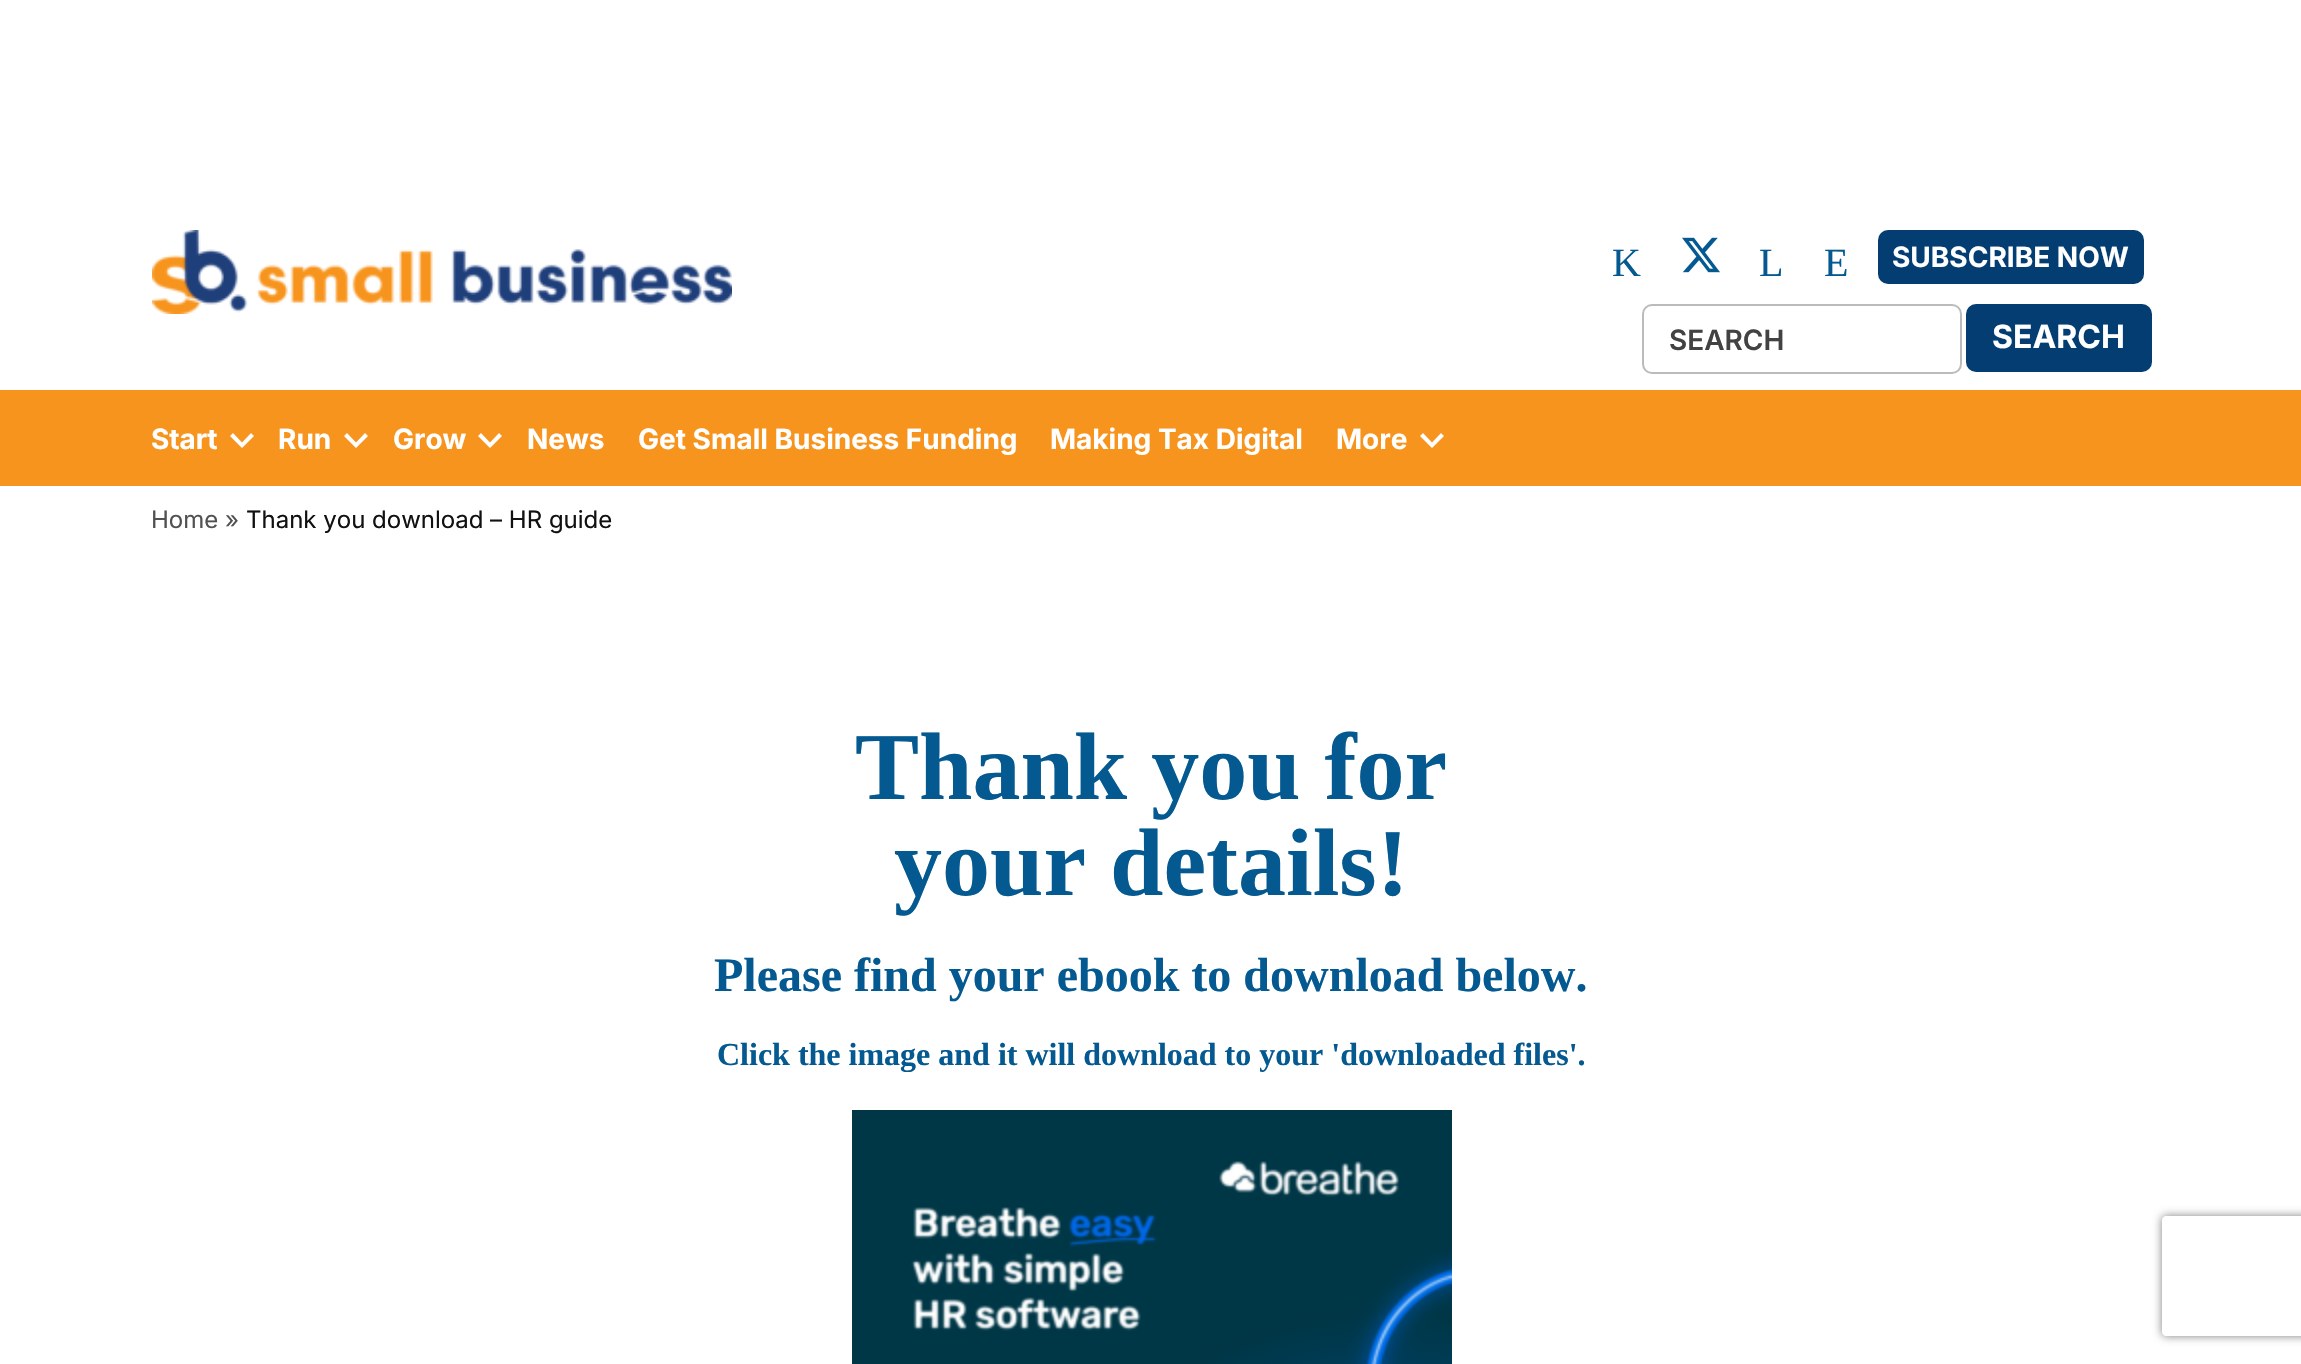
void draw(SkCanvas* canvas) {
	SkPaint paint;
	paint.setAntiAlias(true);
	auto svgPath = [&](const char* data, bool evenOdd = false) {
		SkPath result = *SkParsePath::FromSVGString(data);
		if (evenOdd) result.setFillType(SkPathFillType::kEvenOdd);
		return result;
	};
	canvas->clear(0xffffffff);
	canvas->drawImageRect(SkImages::DeferredFromEncodedData(SkData::MakeFromFileName("img1.png")), SkRect::MakeXYWH(152, 230, 580, 84), SkSamplingOptions());
	SkFont f1(fontMgr->matchFamilyStyle("Liberation Serif", SkFontStyle::Normal()), 40);
	f1.setSubpixel(true);
	paint.setColor(0xff045990);
	canvas->drawString("K", 1612, 276, f1, paint);
	canvas->drawImageRect(SkImages::DeferredFromEncodedData(SkData::MakeFromFileName("img2.png")), SkRect::MakeXYWH(1682, 237, 38, 36), SkSamplingOptions());
	canvas->drawString("L", 1759, 276, f1, paint);
	canvas->drawString("E", 1824, 276, f1, paint);
	paint.setColor(0xff033d72);
	canvas->drawRoundRect(SkRect::MakeXYWH(1878, 230, 266, 54), 10, 10, paint);
	SkFont f2(fontMgr->matchFamilyStyle("Inter", SkFontStyle::Bold()), 28);
	f2.setSubpixel(true);
	paint.setColor(0xffffffff);
	canvas->drawString("SUBSCRIBE NOW", 1892, 267, f2, paint);
	paint.setColor(0xfff7941d);
	canvas->drawRect(SkRect::MakeXYWH(0, 390, 152, 96), paint);
	canvas->drawRect(SkRect::MakeXYWH(152, 390, 2149, 96), paint);
	paint.setStroke(true);
	paint.setStrokeWidth(2);
	paint.setColor(0xffbbbbbb);
	canvas->drawRoundRect(SkRect::MakeXYWH(1643, 305, 318, 68), 9, 9, paint);
	SkFont f3(fontMgr->matchFamilyStyle("Inter", SkFontStyle(600, SkFontStyle::kNormal_Width, SkFontStyle::kUpright_Slant)), 28);
	f3.setSubpixel(true);
	paint.setStroke(false);
	paint.setColor(0xff424242);
	canvas->drawString("SEARCH", 1669, 350, f3, paint);
	paint.setColor(0xff033d72);
	canvas->drawRoundRect(SkRect::MakeXYWH(1966, 304, 186, 68), 10, 10, paint);
	SkFont f4(fontMgr->matchFamilyStyle("Inter", SkFontStyle::Bold()), 32);
	f4.setSubpixel(true);
	paint.setColor(0xffffffff);
	canvas->drawString("SEARCH", 1992, 348, f4, paint);
	canvas->drawString("Start", 151, 449, f2, paint);
	canvas->drawPath(svgPath("M233 433L242 442.5L251 433L254 436L242 448L230 436Z"), paint);
	canvas->drawString("Run", 278, 449, f2, paint);
	canvas->drawPath(svgPath("M347 433L356 442.5L365 433L368 436L356 448L344 436Z"), paint);
	canvas->drawString("Grow", 393, 449, f2, paint);
	canvas->drawPath(svgPath("M481 433L490 442.5L499 433L502 436L490 448L478 436Z"), paint);
	canvas->drawString("News", 527, 449, f2, paint);
	canvas->drawString("Get Small Business Funding", 638, 449, f2, paint);
	canvas->drawString("Making Tax Digital", 1050, 449, f2, paint);
	canvas->drawString("More", 1336, 449, f2, paint);
	canvas->drawPath(svgPath("M1423 433L1432 442.5L1441 433L1444 436L1432 448L1420 436Z"), paint);
	SkFont f5(fontMgr->matchFamilyStyle("Inter", SkFontStyle::Normal()), 24);
	f5.setSubpixel(true);
	paint.setColor(0xff515151);
	canvas->drawString("Home »", 151, 528, f5, paint);
	paint.setColor(0xff111111);
	canvas->drawString("Thank you download – HR guide", 246, 528, f5, paint);
	SkFont f6(fontMgr->matchFamilyStyle("Liberation Serif", SkFontStyle::Bold()), 96);
	f6.setSubpixel(true);
	paint.setColor(0xff045990);
	canvas->drawString("Thank you for", 855, 799, f6, paint);
	canvas->drawString("your details!", 894, 895, f6, paint);
	SkFont f7(fontMgr->matchFamilyStyle("Liberation Serif", SkFontStyle::Bold()), 48);
	f7.setSubpixel(true);
	canvas->drawString("Please find your ebook to download below.", 714, 991, f7, paint);
	SkFont f8(fontMgr->matchFamilyStyle("Liberation Serif", SkFontStyle::Bold()), 32);
	f8.setSubpixel(true);
	canvas->drawString("Click the image and it will download to your 'downloaded files'.", 717, 1065, f8, paint);
	canvas->drawImageRect(SkImages::DeferredFromEncodedData(SkData::MakeFromFileName("img3.png")), SkRect::MakeXYWH(852, 1110, 600, 254), SkSamplingOptions());
	canvas->save();
	canvas->clipPath(svgPath("M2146 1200H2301V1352H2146ZM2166 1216H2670C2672 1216 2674 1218 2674 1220V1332C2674 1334 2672 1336 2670 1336H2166C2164 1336 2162 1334 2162 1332V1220C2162 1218 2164 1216 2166 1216Z", true), true);
	paint.setColor(0xff808080);
	paint.setMaskFilter(SkMaskFilter::MakeBlur(kNormal_SkBlurStyle, 5));
	canvas->drawRoundRect(SkRect::MakeXYWH(2162, 1216, 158, 120), 4, 4, paint);
	paint.setMaskFilter(nullptr);
	canvas->restore();
}
